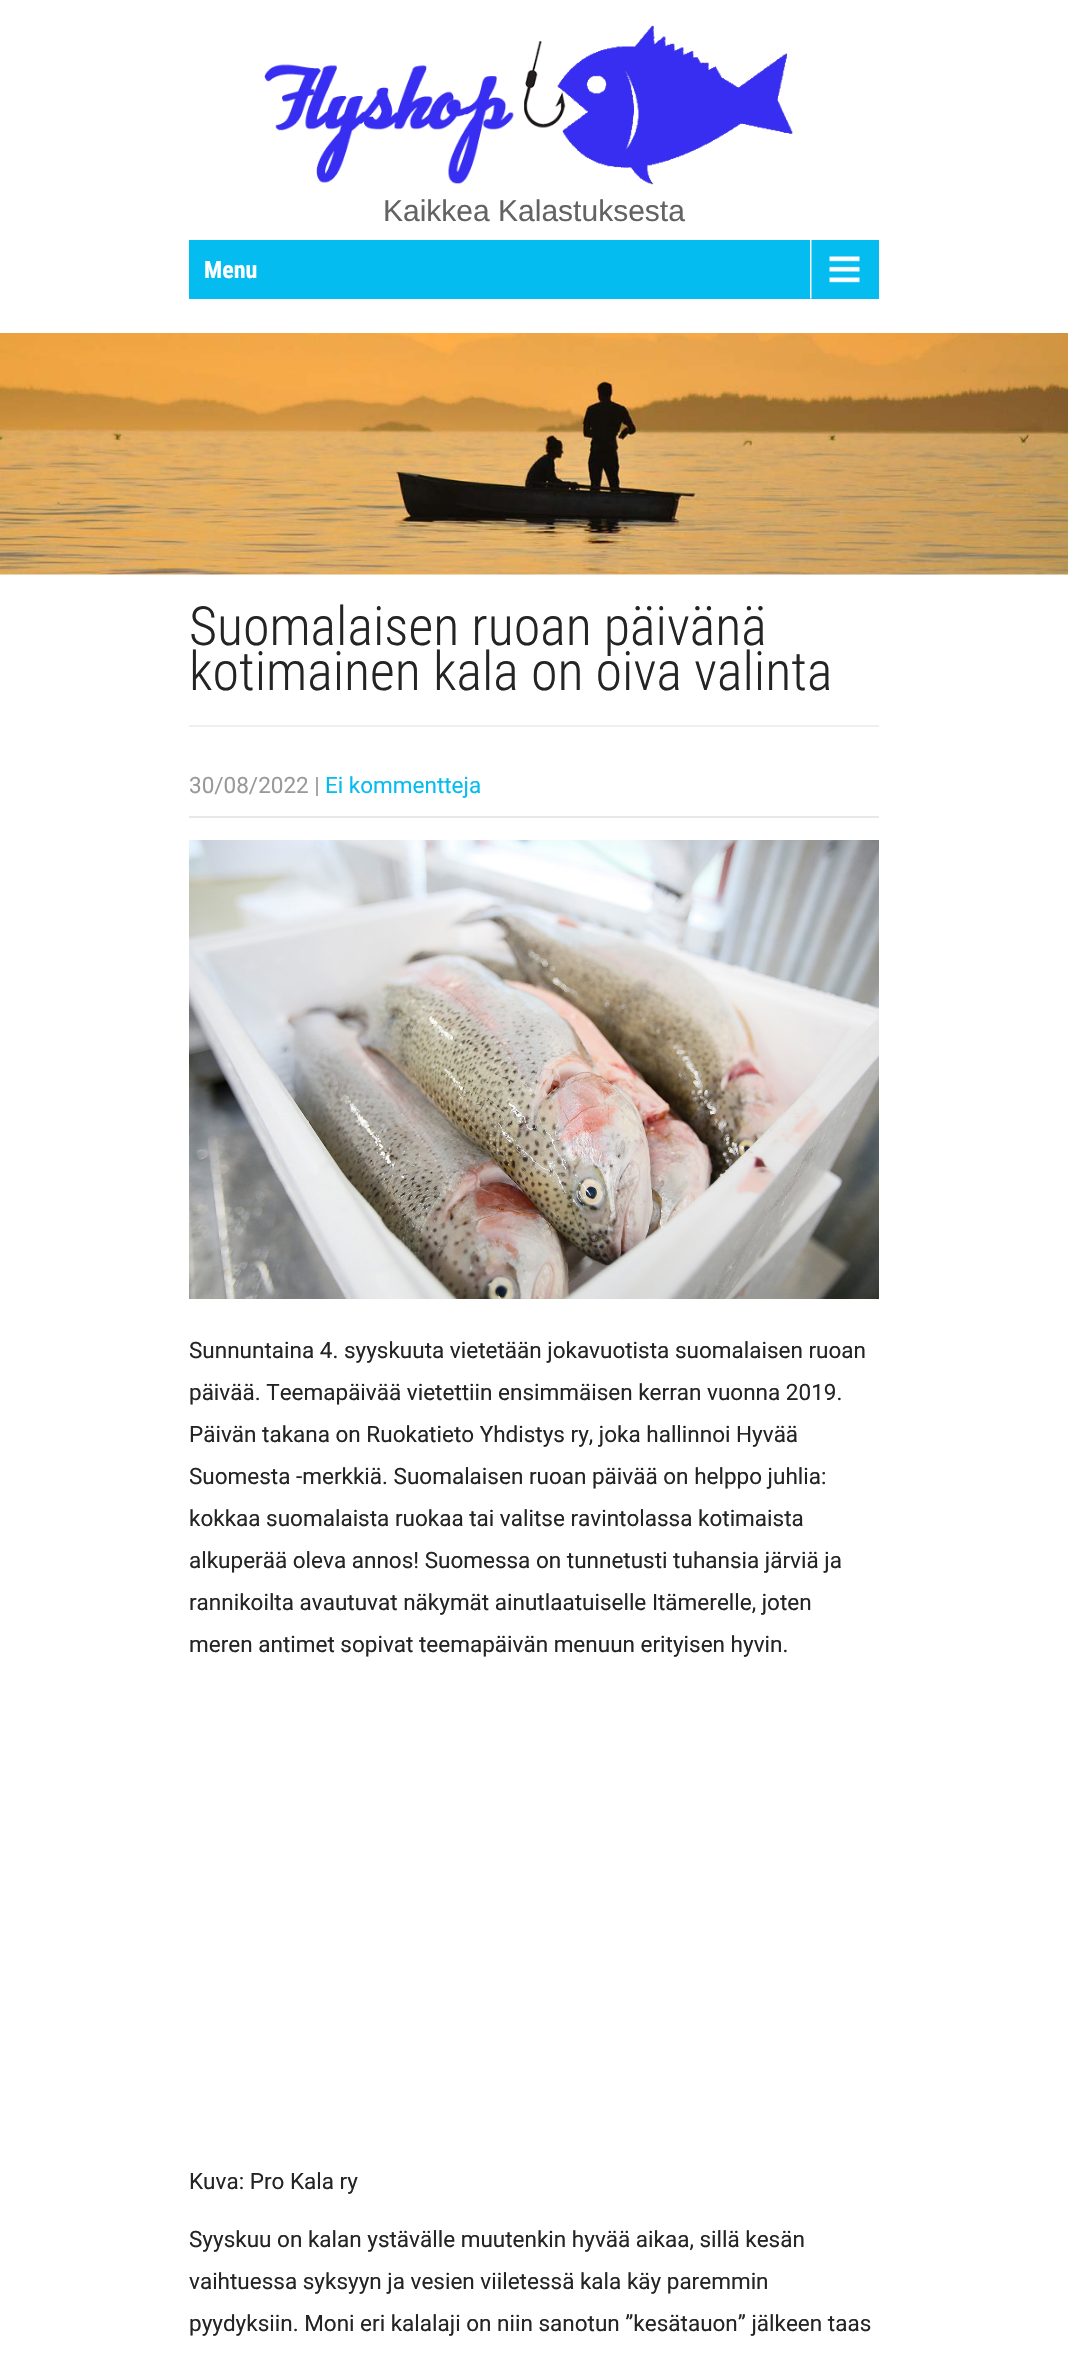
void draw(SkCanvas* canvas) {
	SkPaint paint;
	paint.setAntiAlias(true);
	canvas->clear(0xffffffff);
	canvas->drawImageRect(SkImages::DeferredFromEncodedData(SkData::MakeFromFileName("img1.png")), SkRect::MakeXYWH(264, 25, 529, 160), SkSamplingOptions());
	SkFont f1(fontMgr->matchFamilyStyle("Liberation Sans", SkFontStyle::Normal()), 30);
	f1.setSubpixel(true);
	paint.setColor(0xff636363);
	canvas->drawString("Kaikkea Kalastuksesta", 383, 221, f1, paint);
	paint.setColor(0xff04bcf0);
	canvas->drawRect(SkRect::MakeXYWH(189, 240, 690, 59), paint);
	canvas->drawImageRect(SkImages::DeferredFromEncodedData(SkData::MakeFromFileName("img2.png")), SkRect::MakeXYWH(810, 240, 50, 59), SkSamplingOptions());
	SkFont f2(fontMgr->matchFamilyStyle("Roboto Condensed", SkFontStyle::Bold()), 24);
	f2.setSubpixel(true);
	paint.setColor(0xffffffff);
	canvas->drawString("Menu", 204, 278, f2, paint);
	canvas->drawImageRect(SkImages::DeferredFromEncodedData(SkData::MakeFromFileName("img3.png")), SkRect::MakeXYWH(0, 333, 1068, 242), SkSamplingOptions());
	paint.setColor(0xffefefef);
	canvas->drawRect(SkRect::MakeXYWH(189, 725, 690, 2), paint);
	SkFont f3(fontMgr->matchFamilyStyle("Roboto Condensed", SkFontStyle(300, SkFontStyle::kNormal_Width, SkFontStyle::kUpright_Slant)), 54);
	f3.setSubpixel(true);
	paint.setColor(0xff242424);
	canvas->drawString("Suomalaisen ruoan päivänä", 189, 645, f3, paint);
	canvas->drawString("kotimainen kala on oiva valinta", 189, 690, f3, paint);
	paint.setColor(0xffe8e8e8);
	canvas->drawRect(SkRect::MakeXYWH(189, 816, 690, 2), paint);
	SkFont f4(fontMgr->matchFamilyStyle("Roboto", SkFontStyle::Normal()), 22.5);
	f4.setSubpixel(true);
	paint.setColor(0xff999999);
	canvas->drawString("30/08/2022 |", 189, 793, f4, paint);
	paint.setColor(0xff04bcf0);
	canvas->drawString("Ei kommentteja", 325, 793, f4, paint);
	canvas->drawImageRect(SkImages::DeferredFromEncodedData(SkData::MakeFromFileName("img4.png")), SkRect::MakeXYWH(189, 840, 690, 459), SkSamplingOptions());
	paint.setColor(0xff242424);
	canvas->drawString("Sunnuntaina 4. syyskuuta vietetään jokavuotista suomalaisen ruoan", 189, 1358, f4, paint);
	canvas->drawString("päivää. Teemapäivää vietettiin ensimmäisen kerran vuonna 2019.", 189, 1400, f4, paint);
	canvas->drawString("Päivän takana on Ruokatieto Yhdistys ry, joka hallinnoi Hyvää", 189, 1442, f4, paint);
	canvas->drawString("Suomesta -merkkiä. Suomalaisen ruoan päivää on helppo juhlia:", 189, 1484, f4, paint);
	canvas->drawString("kokkaa suomalaista ruokaa tai valitse ravintolassa kotimaista", 189, 1526, f4, paint);
	canvas->drawString("alkuperää oleva annos! Suomessa on tunnetusti tuhansia järviä ja", 189, 1568, f4, paint);
	canvas->drawString("rannikoilta avautuvat näkymät ainutlaatuiselle Itämerelle, joten", 189, 1610, f4, paint);
	canvas->drawString("meren antimet sopivat teemapäivän menuun erityisen hyvin.", 189, 1652, f4, paint);
	canvas->drawString("Kuva: Pro Kala ry", 189, 2189, f4, paint);
	canvas->drawString("Syyskuu on kalan ystävälle muutenkin hyvää aikaa, sillä kesän", 189, 2247, f4, paint);
	canvas->drawString("vaihtuessa syksyyn ja vesien viiletessä kala käy paremmin", 189, 2289, f4, paint);
	canvas->drawString("pyydyksiin. Moni eri kalalaji on niin sanotun ”kesätauon” jälkeen taas", 189, 2331, f4, paint);
}
